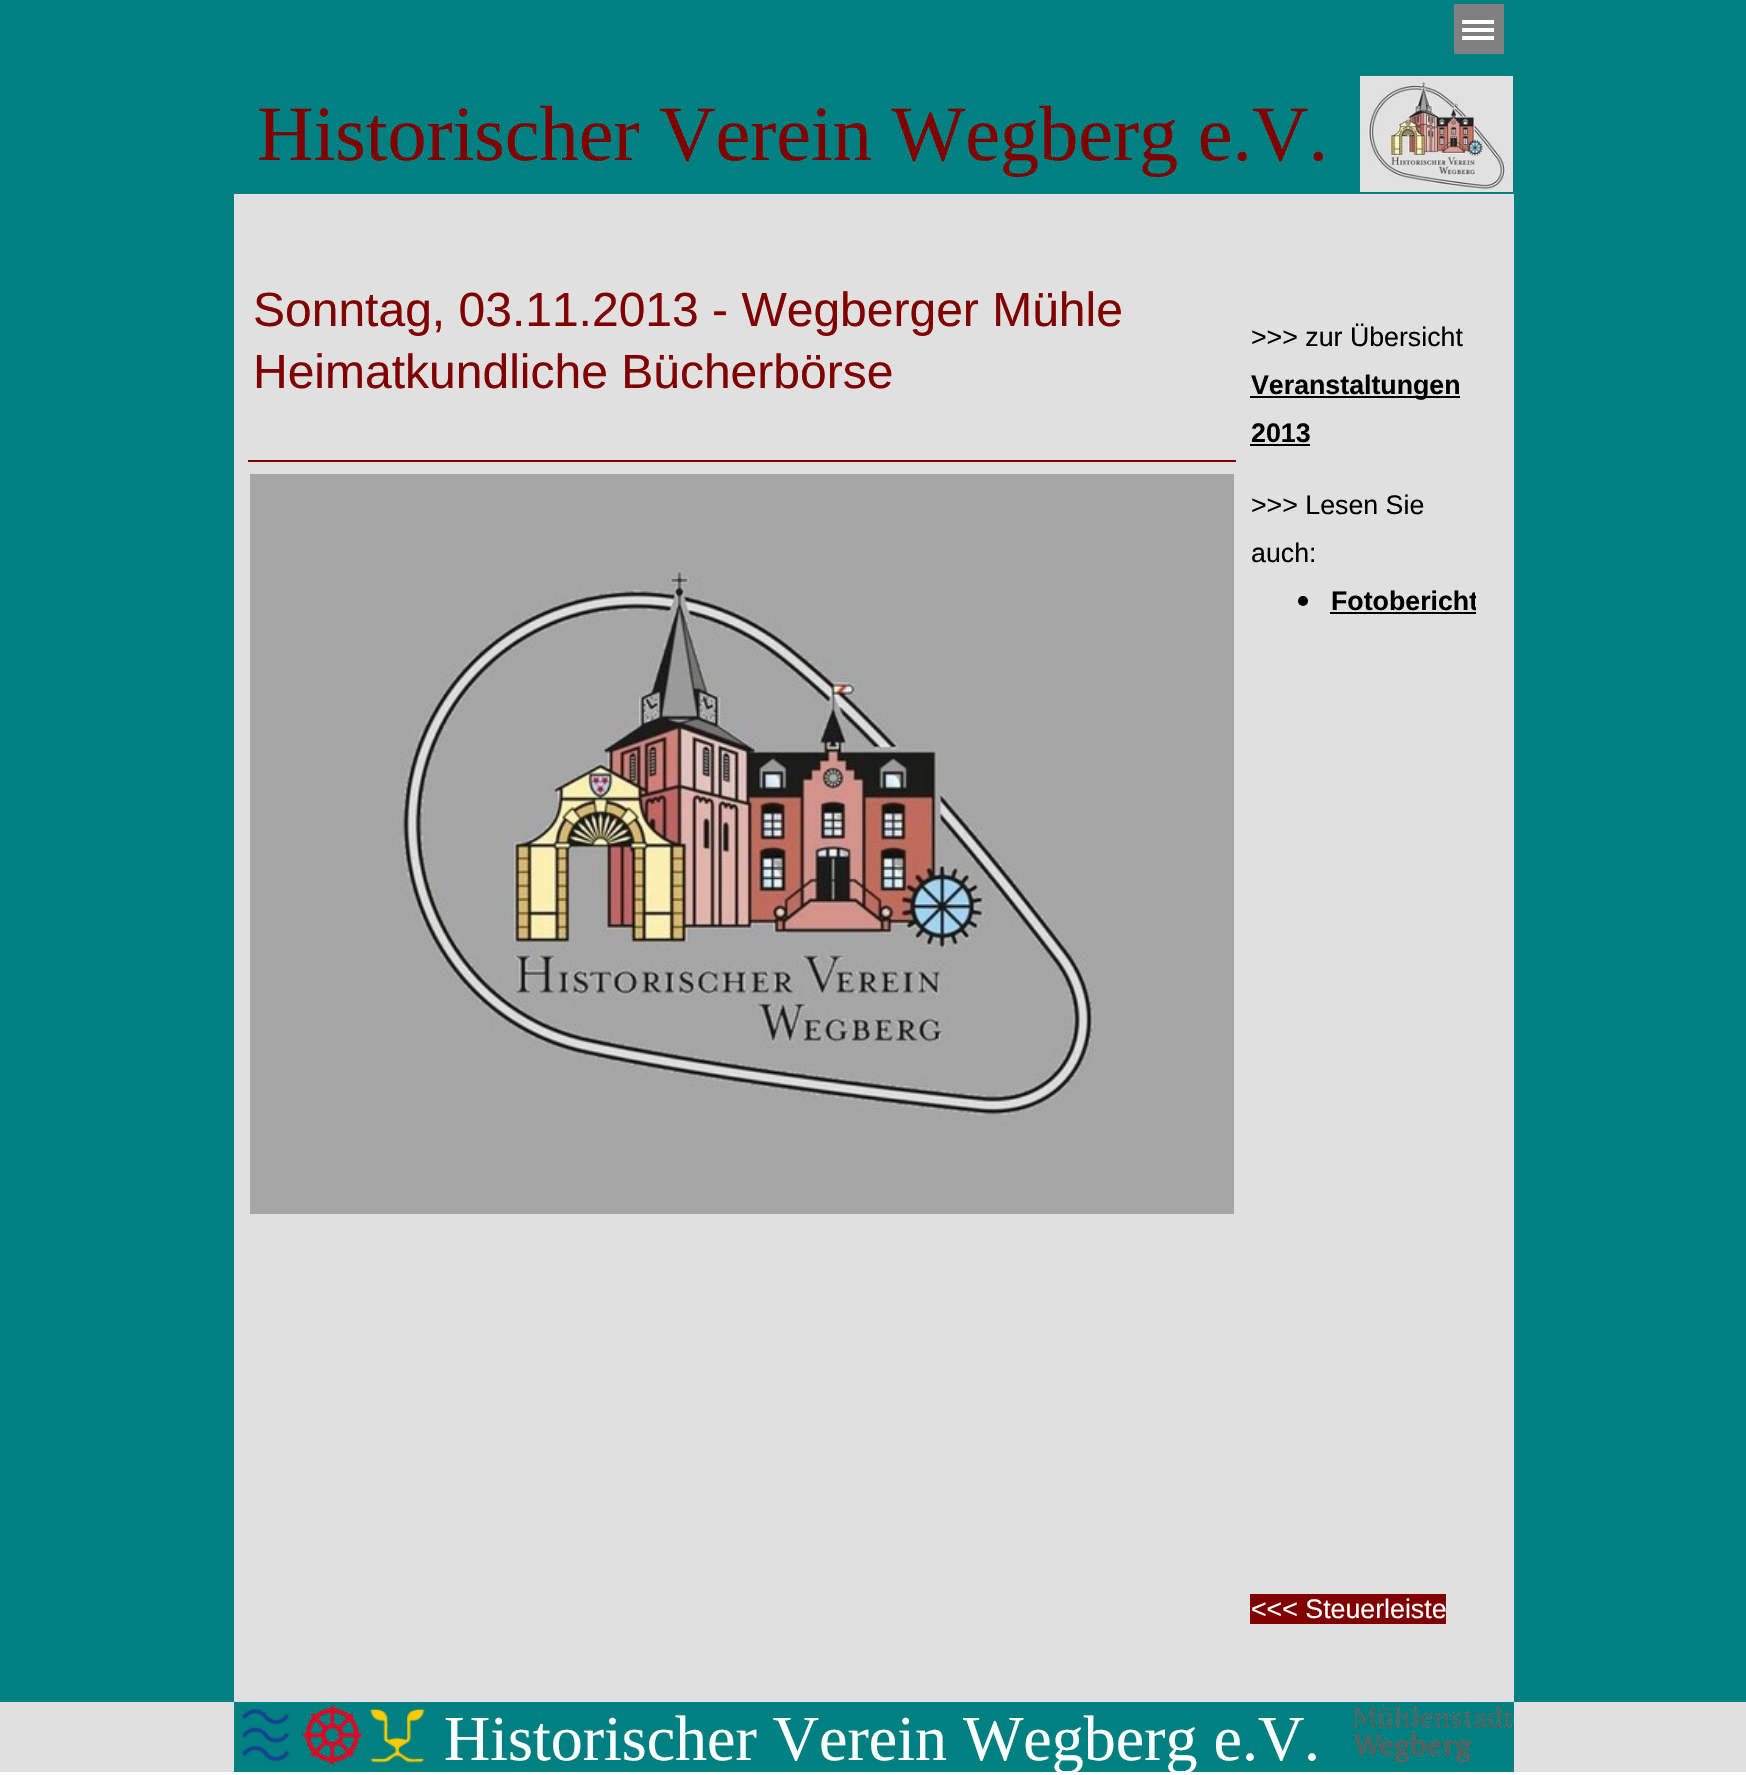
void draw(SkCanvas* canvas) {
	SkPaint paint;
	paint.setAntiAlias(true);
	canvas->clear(0xffffffff);
	paint.setColor(0xff008080);
	canvas->drawRect(SkRect::MakeXYWH(0, 0, 1746, 1702), paint);
	canvas->drawImageRect(SkImages::DeferredFromEncodedData(SkData::MakeFromFileName("img1.png")), SkRect::MakeXYWH(1454, 4, 50, 50), SkSamplingOptions());
	paint.setColor(0xffffffff);
	canvas->drawRect(SkRect::MakeXYWH(1462, 20, 32, 4), paint);
	canvas->drawRect(SkRect::MakeXYWH(1462, 28, 32, 4), paint);
	canvas->drawRect(SkRect::MakeXYWH(1462, 36, 32, 4), paint);
	SkFont f1(fontMgr->matchFamilyStyle("Liberation Serif", SkFontStyle::Normal()), 78.25);
	f1.setSubpixel(true);
	paint.setColor(0xff800000);
	canvas->drawString("Historischer Verein Wegberg e.V.", 257, 160, f1, paint);
	canvas->drawImageRect(SkImages::DeferredFromEncodedData(SkData::MakeFromFileName("img2.png")), SkRect::MakeXYWH(1360, 76, 153, 116), SkSamplingOptions());
	paint.setColor(0xffe0e0e0);
	canvas->drawRect(SkRect::MakeXYWH(234, 194, 1280, 1508), paint);
	SkFont f2(fontMgr->matchFamilyStyle("Liberation Sans", SkFontStyle::Normal()), 48);
	f2.setSubpixel(true);
	paint.setColor(0xff800000);
	canvas->drawString("Sonntag, 03.11.2013 - Wegberger Mühle", 253, 326, f2, paint);
	canvas->drawString("Heimatkundliche Bücherbörse", 253, 388, f2, paint);
	canvas->drawRect(SkRect::MakeXYWH(248, 460, 988, 2), paint);
	SkFont f3(fontMgr->matchFamilyStyle("Liberation Sans", SkFontStyle::Normal()), 26.75);
	f3.setSubpixel(true);
	paint.setColor(0xff000000);
	canvas->drawString(">>> zur Übersicht", 1251, 346, f3, paint);
	canvas->drawRect(SkRect::MakeXYWH(1250, 396, 210, 2), paint);
	SkFont f4(fontMgr->matchFamilyStyle("Liberation Sans", SkFontStyle::Bold()), 26.75);
	f4.setSubpixel(true);
	canvas->drawString("Veranstaltungen", 1251, 394, f4, paint);
	canvas->drawString("2013", 1251, 442, f4, paint);
	canvas->drawRect(SkRect::MakeXYWH(1250, 444, 60, 2), paint);
	canvas->drawImageRect(SkImages::DeferredFromEncodedData(SkData::MakeFromFileName("img3.png")), SkRect::MakeXYWH(250, 474, 984, 740), SkSamplingOptions());
	canvas->drawString(">>> Lesen Sie", 1251, 514, f3, paint);
	canvas->drawString("auch:", 1251, 562, f3, paint);
	canvas->drawCircle(1303, 601, 5, paint);
	canvas->save();
	canvas->clipRect(SkRect::MakeXYWH(1250, 576, 226, 48));
	canvas->drawString("Fotobericht", 1331, 610, f4, paint);
	canvas->restore();
	canvas->drawRect(SkRect::MakeXYWH(1330, 612, 146, 2), paint);
	paint.setColor(0xff800000);
	canvas->drawRect(SkRect::MakeXYWH(1250, 1594, 196, 30), paint);
	paint.setColor(0xffffffff);
	canvas->drawString("<<< Steuerleiste", 1251, 1618, f3, paint);
	paint.setColor(0xffe0e0e0);
	canvas->drawRect(SkRect::MakeXYWH(0, 1702, 1746, 70), paint);
	paint.setColor(0xff008080);
	canvas->drawRect(SkRect::MakeXYWH(234, 1702, 1280, 70), paint);
	canvas->drawImageRect(SkImages::DeferredFromEncodedData(SkData::MakeFromFileName("img4.png")), SkRect::MakeXYWH(242, 1705, 183, 60), SkSamplingOptions());
	SkFont f5(fontMgr->matchFamilyStyle("Liberation Serif", SkFontStyle::Normal()), 64);
	f5.setSubpixel(true);
	paint.setColor(0xffffffff);
	canvas->drawString("Historischer Verein Wegberg e.V.", 444, 1760, f5, paint);
	canvas->drawImageRect(SkImages::DeferredFromEncodedData(SkData::MakeFromFileName("img5.png")), SkRect::MakeXYWH(1353, 1705, 160, 58), SkSamplingOptions());
}
